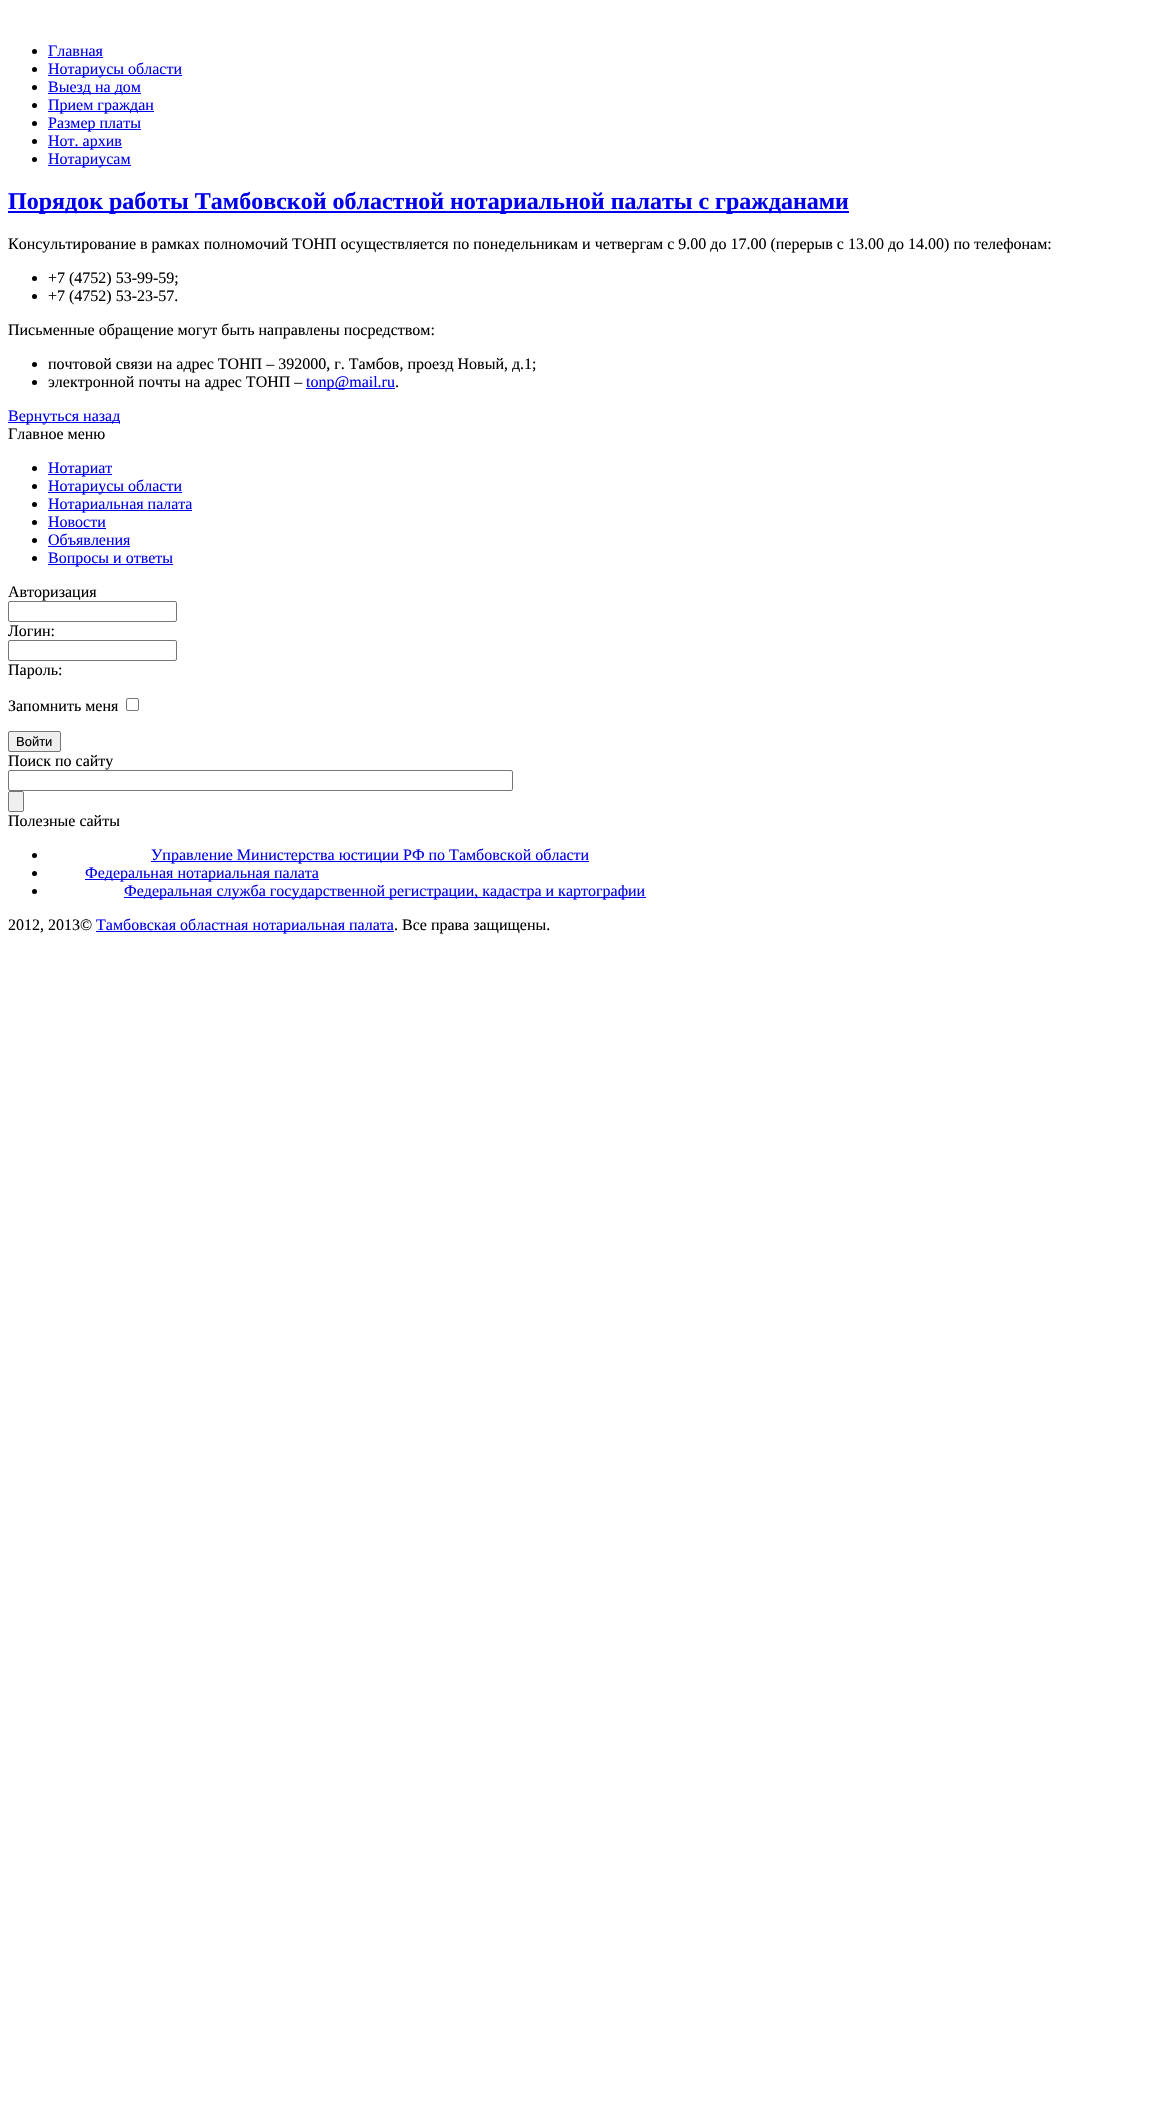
void draw(SkCanvas* canvas) {
	SkPaint paint;
	paint.setAntiAlias(true);
	canvas->clear(0xffffffff);
	paint.setColor(0xff000000);
	canvas->drawCircle(34.5, 51.5, 2.5, paint);
	SkFont f1(fontMgr->matchFamilyStyle("Liberation Serif", SkFontStyle::Normal()), 16);
	f1.setSubpixel(true);
	paint.setColor(0xff0000ee);
	canvas->drawString("Главная", 48, 56, f1, paint);
	canvas->drawRect(SkRect::MakeXYWH(48, 57, 55, 1), paint);
	paint.setColor(0xff000000);
	canvas->drawCircle(34.5, 69.5, 2.5, paint);
	paint.setColor(0xff0000ee);
	canvas->drawRect(SkRect::MakeXYWH(48, 75, 134, 1), paint);
	canvas->drawString("Нотариусы области", 48, 74, f1, paint);
	paint.setColor(0xff000000);
	canvas->drawCircle(34.5, 87.5, 2.5, paint);
	paint.setColor(0xff0000ee);
	canvas->drawRect(SkRect::MakeXYWH(48, 93, 93, 1), paint);
	canvas->drawString("Выезд на дом", 48, 92, f1, paint);
	paint.setColor(0xff000000);
	canvas->drawCircle(34.5, 105.5, 2.5, paint);
	paint.setColor(0xff0000ee);
	canvas->drawRect(SkRect::MakeXYWH(48, 111, 106, 1), paint);
	canvas->drawString("Прием граждан", 48, 110, f1, paint);
	paint.setColor(0xff000000);
	canvas->drawCircle(34.5, 123.5, 2.5, paint);
	paint.setColor(0xff0000ee);
	canvas->drawRect(SkRect::MakeXYWH(48, 129, 93, 1), paint);
	canvas->drawString("Размер платы", 48, 128, f1, paint);
	paint.setColor(0xff000000);
	canvas->drawCircle(34.5, 141.5, 2.5, paint);
	paint.setColor(0xff0000ee);
	canvas->drawRect(SkRect::MakeXYWH(48, 147, 74, 1), paint);
	canvas->drawString("Нот. архив", 48, 146, f1, paint);
	paint.setColor(0xff000000);
	canvas->drawCircle(34.5, 159.5, 2.5, paint);
	paint.setColor(0xff0000ee);
	canvas->drawRect(SkRect::MakeXYWH(48, 165, 83, 1), paint);
	canvas->drawString("Нотариусам", 48, 164, f1, paint);
	canvas->drawRect(SkRect::MakeXYWH(8, 211, 841, 2), paint);
	SkFont f2(fontMgr->matchFamilyStyle("Liberation Serif", SkFontStyle::Bold()), 24);
	f2.setSubpixel(true);
	canvas->drawString("Порядок работы Тамбовской областной нотариальной палаты с гражданами", 8, 209, f2, paint);
	paint.setColor(0xff000000);
	canvas->drawString("Консультирование в рамках полномочий ТОНП осуществляется по понедельникам и четвергам с 9.00 до 17.00 (перерыв с 13.00 до 14.00) по телефонам:", 8, 249, f1, paint);
	canvas->drawCircle(34.5, 278.5, 2.5, paint);
	canvas->drawString("+7 (4752) 53-99-59;", 48, 283, f1, paint);
	canvas->drawCircle(34.5, 296.5, 2.5, paint);
	canvas->drawString("+7 (4752) 53-23-57.", 48, 301, f1, paint);
	canvas->drawString("Письменные обращение могут быть направлены посредством:", 8, 335, f1, paint);
	canvas->drawCircle(34.5, 364.5, 2.5, paint);
	canvas->drawString("почтовой связи на адрес ТОНП – 392000, г. Тамбов, проезд Новый, д.1;", 48, 369, f1, paint);
	canvas->drawCircle(34.5, 382.5, 2.5, paint);
	canvas->drawString("электронной почты на адрес ТОНП –", 48, 387, f1, paint);
	paint.setColor(0xff0000ee);
	canvas->drawRect(SkRect::MakeXYWH(306, 388, 89, 1), paint);
	canvas->drawString("tonp@mail.ru", 306, 387, f1, paint);
	paint.setColor(0xff000000);
	canvas->drawString(".", 395, 387, f1, paint);
	paint.setColor(0xff0000ee);
	canvas->drawRect(SkRect::MakeXYWH(8, 422, 112, 1), paint);
	canvas->drawString("Вернуться назад", 8, 421, f1, paint);
	paint.setColor(0xff000000);
	canvas->drawString("Главное меню", 8, 439, f1, paint);
	canvas->drawCircle(34.5, 468.5, 2.5, paint);
	paint.setColor(0xff0000ee);
	canvas->drawRect(SkRect::MakeXYWH(48, 474, 64, 1), paint);
	canvas->drawString("Нотариат", 48, 473, f1, paint);
	paint.setColor(0xff000000);
	canvas->drawCircle(34.5, 486.5, 2.5, paint);
	paint.setColor(0xff0000ee);
	canvas->drawRect(SkRect::MakeXYWH(48, 492, 134, 1), paint);
	canvas->drawString("Нотариусы области", 48, 491, f1, paint);
	paint.setColor(0xff000000);
	canvas->drawCircle(34.5, 504.5, 2.5, paint);
	paint.setColor(0xff0000ee);
	canvas->drawRect(SkRect::MakeXYWH(48, 510, 144, 1), paint);
	canvas->drawString("Нотариальная палата", 48, 509, f1, paint);
	paint.setColor(0xff000000);
	canvas->drawCircle(34.5, 522.5, 2.5, paint);
	paint.setColor(0xff0000ee);
	canvas->drawString("Новости", 48, 527, f1, paint);
	canvas->drawRect(SkRect::MakeXYWH(48, 528, 58, 1), paint);
	paint.setColor(0xff000000);
	canvas->drawCircle(34.5, 540.5, 2.5, paint);
	paint.setColor(0xff0000ee);
	canvas->drawString("Объявления", 48, 545, f1, paint);
	canvas->drawRect(SkRect::MakeXYWH(48, 546, 82, 1), paint);
	paint.setColor(0xff000000);
	canvas->drawCircle(34.5, 558.5, 2.5, paint);
	paint.setColor(0xff0000ee);
	canvas->drawRect(SkRect::MakeXYWH(48, 564, 125, 1), paint);
	canvas->drawString("Вопросы и ответы", 48, 563, f1, paint);
	paint.setColor(0xff000000);
	canvas->drawString("Авторизация", 8, 597, f1, paint);
	paint.setStroke(true);
	paint.setStrokeWidth(1);
	paint.setColor(0xff767676);
	canvas->drawRoundRect(SkRect::MakeXYWH(8.5, 601.5, 168, 20), 1.5, 1.5, paint);
	paint.setStroke(false);
	paint.setColor(0xff000000);
	canvas->drawString("Логин:", 8, 636, f1, paint);
	paint.setStroke(true);
	paint.setColor(0xff767676);
	canvas->drawRoundRect(SkRect::MakeXYWH(8.5, 640.5, 168, 20), 1.5, 1.5, paint);
	paint.setStroke(false);
	paint.setColor(0xff000000);
	canvas->drawString("Пароль:", 8, 675, f1, paint);
	canvas->drawString("Запомнить меня", 8, 711, f1, paint);
	paint.setStroke(true);
	paint.setColor(0xff767676);
	canvas->drawRoundRect(SkRect::MakeXYWH(126.5, 698.5, 12, 12), 1.5, 1.5, paint);
	paint.setStroke(false);
	paint.setColor(0xffefefef);
	canvas->drawRoundRect(SkRect::MakeXYWH(8.5, 731.5, 52, 20), 1.5, 1.5, paint);
	paint.setStroke(true);
	paint.setColor(0xff767676);
	canvas->drawRoundRect(SkRect::MakeXYWH(8.5, 731.5, 52, 20), 1.5, 1.5, paint);
	SkFont f3(fontMgr->matchFamilyStyle("Liberation Sans", SkFontStyle::Normal()), 13);
	f3.setSubpixel(true);
	paint.setStroke(false);
	paint.setColor(0xff000000);
	canvas->drawString("Войти", 16, 746, f3, paint);
	canvas->drawString("Поиск по сайту", 8, 766, f1, paint);
	paint.setStroke(true);
	paint.setColor(0xff767676);
	canvas->drawRoundRect(SkRect::MakeXYWH(8.5, 770.5, 504, 20), 1.5, 1.5, paint);
	paint.setStroke(false);
	paint.setColor(0xffefefef);
	canvas->drawRoundRect(SkRect::MakeXYWH(8.5, 791.5, 15, 20), 1.5, 1.5, paint);
	paint.setStroke(true);
	paint.setColor(0xff767676);
	canvas->drawRoundRect(SkRect::MakeXYWH(8.5, 791.5, 15, 20), 1.5, 1.5, paint);
	paint.setStroke(false);
	paint.setColor(0xff000000);
	canvas->drawString("Полезные сайты", 8, 826, f1, paint);
	canvas->drawCircle(34.5, 855.5, 2.5, paint);
	paint.setColor(0xff0000ee);
	canvas->drawRect(SkRect::MakeXYWH(151, 861, 438, 1), paint);
	canvas->drawString("Управление Министерства юстиции РФ по Тамбовской области", 151, 860, f1, paint);
	paint.setColor(0xff000000);
	canvas->drawCircle(34.5, 873.5, 2.5, paint);
	paint.setColor(0xff0000ee);
	canvas->drawRect(SkRect::MakeXYWH(85, 879, 234, 1), paint);
	canvas->drawString("Федеральная нотариальная палата", 85, 878, f1, paint);
	paint.setColor(0xff000000);
	canvas->drawCircle(34.5, 891.5, 2.5, paint);
	paint.setColor(0xff0000ee);
	canvas->drawRect(SkRect::MakeXYWH(124, 897, 522, 1), paint);
	canvas->drawString("Федеральная служба государственной регистрации, кадастра и картографии", 124, 896, f1, paint);
	paint.setColor(0xff000000);
	canvas->drawString("2012, 2013©", 8, 930, f1, paint);
	paint.setColor(0xff0000ee);
	canvas->drawRect(SkRect::MakeXYWH(96, 931, 298, 1), paint);
	canvas->drawString("Тамбовская областная нотариальная палата", 96, 930, f1, paint);
	paint.setColor(0xff000000);
	canvas->drawString(". Все права защищены.", 394, 930, f1, paint);
}
